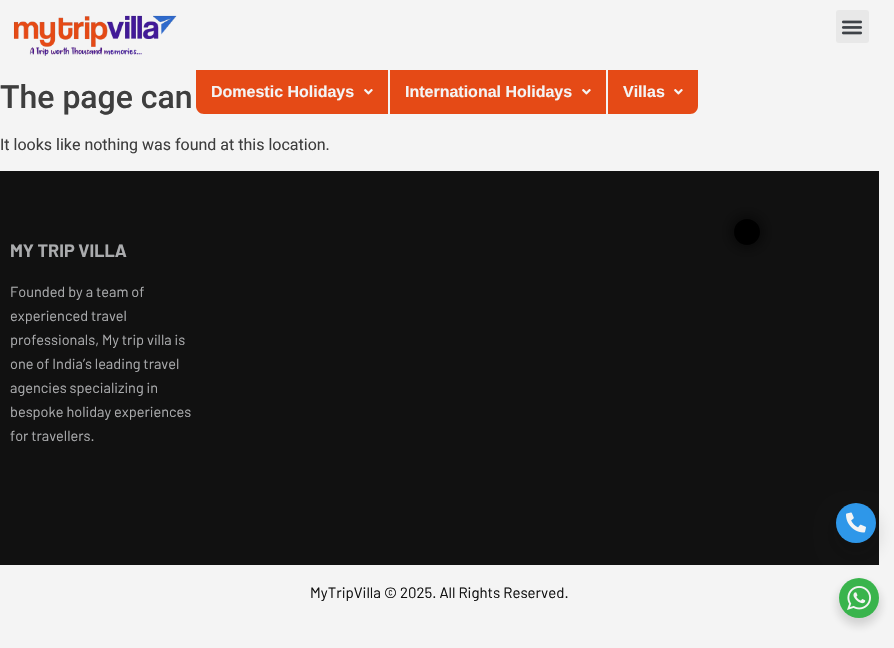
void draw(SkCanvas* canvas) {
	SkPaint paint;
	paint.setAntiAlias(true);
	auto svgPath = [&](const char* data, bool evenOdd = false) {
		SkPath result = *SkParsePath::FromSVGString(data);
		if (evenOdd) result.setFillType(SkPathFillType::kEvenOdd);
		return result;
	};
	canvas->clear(0xfff4f4f4);
	SkFont f1(fontMgr->matchFamilyStyle("Roboto", SkFontStyle(500, SkFontStyle::kNormal_Width, SkFontStyle::kUpright_Slant)), 32);
	f1.setSubpixel(true);
	paint.setColor(0xff3e3e3e);
	canvas->drawString("The page can", 0, 108, f1, paint);
	SkFont f2(fontMgr->matchFamilyStyle("Roboto", SkFontStyle::Normal()), 16);
	f2.setSubpixel(true);
	canvas->drawString("It looks like nothing was found at this location.", 0, 150, f2, paint);
	canvas->drawImageRect(SkImages::DeferredFromEncodedData(SkData::MakeFromFileName("img1.png")), SkRect::MakeXYWH(13, 15, 164, 41), SkSamplingOptions());
	paint.setColor(0xffe8e8e8);
	canvas->drawRoundRect(SkRect::MakeXYWH(836, 10, 33, 33), 3, 3, paint);
	canvas->drawImageRect(SkImages::DeferredFromEncodedData(SkData::MakeFromFileName("img2.png")), SkRect::MakeXYWH(841, 20, 22, 15), SkSamplingOptions());
	paint.setColor(0xffe54a16);
	canvas->drawPath(svgPath("M196 70H388V114H204C199.5 114 196 110.5 196 106Z"), paint);
	SkFont f3(fontMgr->matchFamilyStyle("Liberation Sans", SkFontStyle::Bold()), 16);
	f3.setSubpixel(true);
	paint.setColor(0xfff4f4f4);
	canvas->drawString("Domestic Holidays", 211, 97, f3, paint);
	canvas->drawImageRect(SkImages::DeferredFromEncodedData(SkData::MakeFromFileName("img3.png")), SkRect::MakeXYWH(364, 89, 9, 6), SkSamplingOptions());
	paint.setColor(0xffe54a16);
	canvas->drawRect(SkRect::MakeXYWH(390, 70, 216, 44), paint);
	paint.setColor(0xfff4f4f4);
	canvas->drawString("International Holidays", 405, 97, f3, paint);
	canvas->drawImageRect(SkImages::DeferredFromEncodedData(SkData::MakeFromFileName("img3.png")), SkRect::MakeXYWH(582, 89, 9, 6), SkSamplingOptions());
	paint.setColor(0xffe54a16);
	canvas->drawPath(svgPath("M608 70H698V106C698 110.5 694.5 114 690 114H608Z"), paint);
	paint.setColor(0xfff4f4f4);
	canvas->drawString("Villas", 623, 97, f3, paint);
	canvas->drawImageRect(SkImages::DeferredFromEncodedData(SkData::MakeFromFileName("img3.png")), SkRect::MakeXYWH(674, 89, 9, 6), SkSamplingOptions());
	paint.setColor(0xff111111);
	canvas->drawRect(SkRect::MakeXYWH(0, 171, 879, 394), paint);
	paint.setColor(0xbf000000);
	paint.setMaskFilter(SkMaskFilter::MakeBlur(kNormal_SkBlurStyle, 7.5));
	canvas->drawRoundRect(SkRect::MakeXYWH(733, 218, 28, 28), 14, 14, paint);
	paint.setMaskFilter(nullptr);
	paint.setColor(0xff000000);
	canvas->drawCircle(747, 232, 12, paint);
	paint.setStroke(true);
	paint.setStrokeWidth(2);
	canvas->drawCircle(747, 232, 12, paint);
	SkFont f4(fontMgr->matchFamilyStyle("Barlow", SkFontStyle::Bold()), 18);
	f4.setSubpixel(true);
	paint.setStroke(false);
	paint.setColor(0xffaaabad);
	canvas->drawString("MY TRIP VILLA", 10, 257, f4, paint);
	SkFont f5(fontMgr->matchFamilyStyle("Barlow", SkFontStyle::Normal()), 14.5);
	f5.setSubpixel(true);
	canvas->drawString("Founded by a team of", 10, 297, f5, paint);
	canvas->drawString("experienced travel", 10, 321, f5, paint);
	canvas->drawString("professionals, My trip villa is", 10, 345, f5, paint);
	canvas->drawString("one of India’s leading travel", 10, 369, f5, paint);
	canvas->drawString("agencies specializing in", 10, 393, f5, paint);
	canvas->drawString("bespoke holiday experiences", 10, 417, f5, paint);
	canvas->drawString("for travellers.", 10, 441, f5, paint);
	paint.setColor(0x33111111);
	paint.setMaskFilter(SkMaskFilter::MakeBlur(kNormal_SkBlurStyle, 10));
	canvas->drawRoundRect(SkRect::MakeXYWH(836, 513, 40, 40), 20, 20, paint);
	paint.setMaskFilter(nullptr);
	paint.setColor(0xff2e97e9);
	canvas->drawCircle(856, 523, 20, paint);
	canvas->drawImageRect(SkImages::DeferredFromEncodedData(SkData::MakeFromFileName("img4.png")), SkRect::MakeXYWH(846, 512, 20, 21), SkSamplingOptions());
	SkFont f6(fontMgr->matchFamilyStyle("Barlow", SkFontStyle::Normal()), 15);
	f6.setSubpixel(true);
	paint.setColor(0xff111111);
	canvas->drawString("MyTripVilla © 2025. All Rights Reserved.", 310, 598, f6, paint);
	paint.setColor(0x24111111);
	paint.setMaskFilter(SkMaskFilter::MakeBlur(kNormal_SkBlurStyle, 4));
	canvas->drawRoundRect(SkRect::MakeXYWH(837, 582, 44, 44), 22, 22, paint);
	paint.setMaskFilter(nullptr);
	paint.setColor(0xff39b44c);
	canvas->drawCircle(859, 598, 20, paint);
	canvas->drawImageRect(SkImages::DeferredFromEncodedData(SkData::MakeFromFileName("img5.png")), SkRect::MakeXYWH(847, 586, 24, 24), SkSamplingOptions());
}
